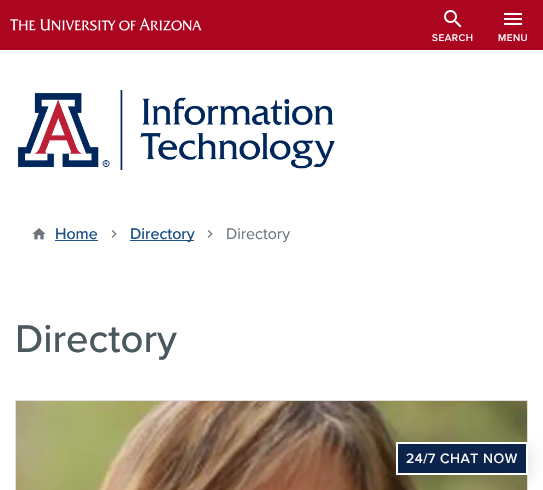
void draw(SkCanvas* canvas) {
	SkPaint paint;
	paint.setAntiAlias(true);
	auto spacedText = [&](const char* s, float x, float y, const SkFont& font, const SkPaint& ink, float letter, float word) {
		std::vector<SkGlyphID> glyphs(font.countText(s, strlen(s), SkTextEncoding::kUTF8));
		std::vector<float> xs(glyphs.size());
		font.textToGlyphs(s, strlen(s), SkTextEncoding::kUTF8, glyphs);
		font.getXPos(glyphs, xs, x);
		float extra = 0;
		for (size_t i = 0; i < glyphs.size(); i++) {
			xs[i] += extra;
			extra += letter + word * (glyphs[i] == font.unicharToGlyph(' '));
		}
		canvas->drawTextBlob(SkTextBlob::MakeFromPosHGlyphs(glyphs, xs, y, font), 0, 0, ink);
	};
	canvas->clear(0xffffffff);
	paint.setColor(0xffab0520);
	canvas->drawRect(SkRect::MakeXYWH(0, 0, 543, 50), paint);
	canvas->drawImageRect(SkImages::DeferredFromEncodedData(SkData::MakeFromFileName("img1.png")), SkRect::MakeXYWH(10, 17, 192, 14), SkSamplingOptions());
	canvas->drawImageRect(SkImages::DeferredFromEncodedData(SkData::MakeFromFileName("img2.png")), SkRect::MakeXYWH(444, 10, 18, 18), SkSamplingOptions());
	SkFont f1(fontMgr->matchFamilyStyle("Proxima Nova", SkFontStyle(500, SkFontStyle::kNormal_Width, SkFontStyle::kUpright_Slant)), 10);
	f1.setSubpixel(true);
	paint.setColor(0xffffffff);
	spacedText("SEARCH", 432, 41, f1, paint, 0.5, 0);
	canvas->drawImageRect(SkImages::DeferredFromEncodedData(SkData::MakeFromFileName("img3.png")), SkRect::MakeXYWH(504, 13, 18, 12), SkSamplingOptions());
	spacedText("MENU", 498, 41, f1, paint, 0.5, 0);
	canvas->drawImageRect(SkImages::DeferredFromEncodedData(SkData::MakeFromFileName("img4.png")), SkRect::MakeXYWH(17, 90, 318, 80), SkSamplingOptions());
	canvas->drawImageRect(SkImages::DeferredFromEncodedData(SkData::MakeFromFileName("img5.png")), SkRect::MakeXYWH(32, 228, 14, 12), SkSamplingOptions());
	SkFont f2(fontMgr->matchFamilyStyle("Proxima Nova", SkFontStyle(500, SkFontStyle::kNormal_Width, SkFontStyle::kUpright_Slant)), 16);
	f2.setSubpixel(true);
	paint.setColor(0xff1e5288);
	canvas->drawString("Home", 55, 239, f2, paint);
	canvas->drawRect(SkRect::MakeXYWH(55, 240, 43, 1), paint);
	canvas->drawImageRect(SkImages::DeferredFromEncodedData(SkData::MakeFromFileName("img6.png")), SkRect::MakeXYWH(111, 230, 6, 8), SkSamplingOptions());
	canvas->drawRect(SkRect::MakeXYWH(130, 240, 64, 1), paint);
	canvas->drawString("Directory", 130, 239, f2, paint);
	canvas->drawImageRect(SkImages::DeferredFromEncodedData(SkData::MakeFromFileName("img6.png")), SkRect::MakeXYWH(207, 230, 6, 8), SkSamplingOptions());
	SkFont f3(fontMgr->matchFamilyStyle("Proxima Nova", SkFontStyle::Normal()), 16);
	f3.setSubpixel(true);
	paint.setColor(0xff6c757d);
	canvas->drawString("Directory", 226, 239, f3, paint);
	SkFont f4(fontMgr->matchFamilyStyle("Proxima Nova", SkFontStyle(500, SkFontStyle::kNormal_Width, SkFontStyle::kUpright_Slant)), 40);
	f4.setSubpixel(true);
	paint.setColor(0xff49595e);
	canvas->drawString("Directory", 15, 352, f4, paint);
	paint.setStroke(true);
	paint.setStrokeWidth(1);
	paint.setColor(0xffdfdfdf);
	canvas->drawRect(SkRect::MakeXYWH(15.5, 400.5, 512, 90), paint);
	canvas->drawImageRect(SkImages::DeferredFromEncodedData(SkData::MakeFromFileName("img7.png")), SkRect::MakeXYWH(16, 401, 511, 89), SkSamplingOptions());
	paint.setStroke(false);
	paint.setColor(0x26000000);
	paint.setMaskFilter(SkMaskFilter::MakeBlur(kNormal_SkBlurStyle, 8));
	canvas->drawRect(SkRect::MakeXYWH(396, 446, 132, 33), paint);
	paint.setMaskFilter(nullptr);
	paint.setColor(0xff0c234b);
	canvas->drawRect(SkRect::MakeXYWH(397, 443, 130, 31), paint);
	paint.setStroke(true);
	paint.setStrokeWidth(2);
	paint.setColor(0xffffffff);
	canvas->drawRect(SkRect::MakeXYWH(397, 443, 130, 31), paint);
	SkFont f5(fontMgr->matchFamilyStyle("Proxima Nova", SkFontStyle(500, SkFontStyle::kNormal_Width, SkFontStyle::kUpright_Slant)), 14);
	f5.setSubpixel(true);
	paint.setStroke(false);
	spacedText("24/7 CHAT NOW", 406, 463, f5, paint, 0.5, 0);
}
